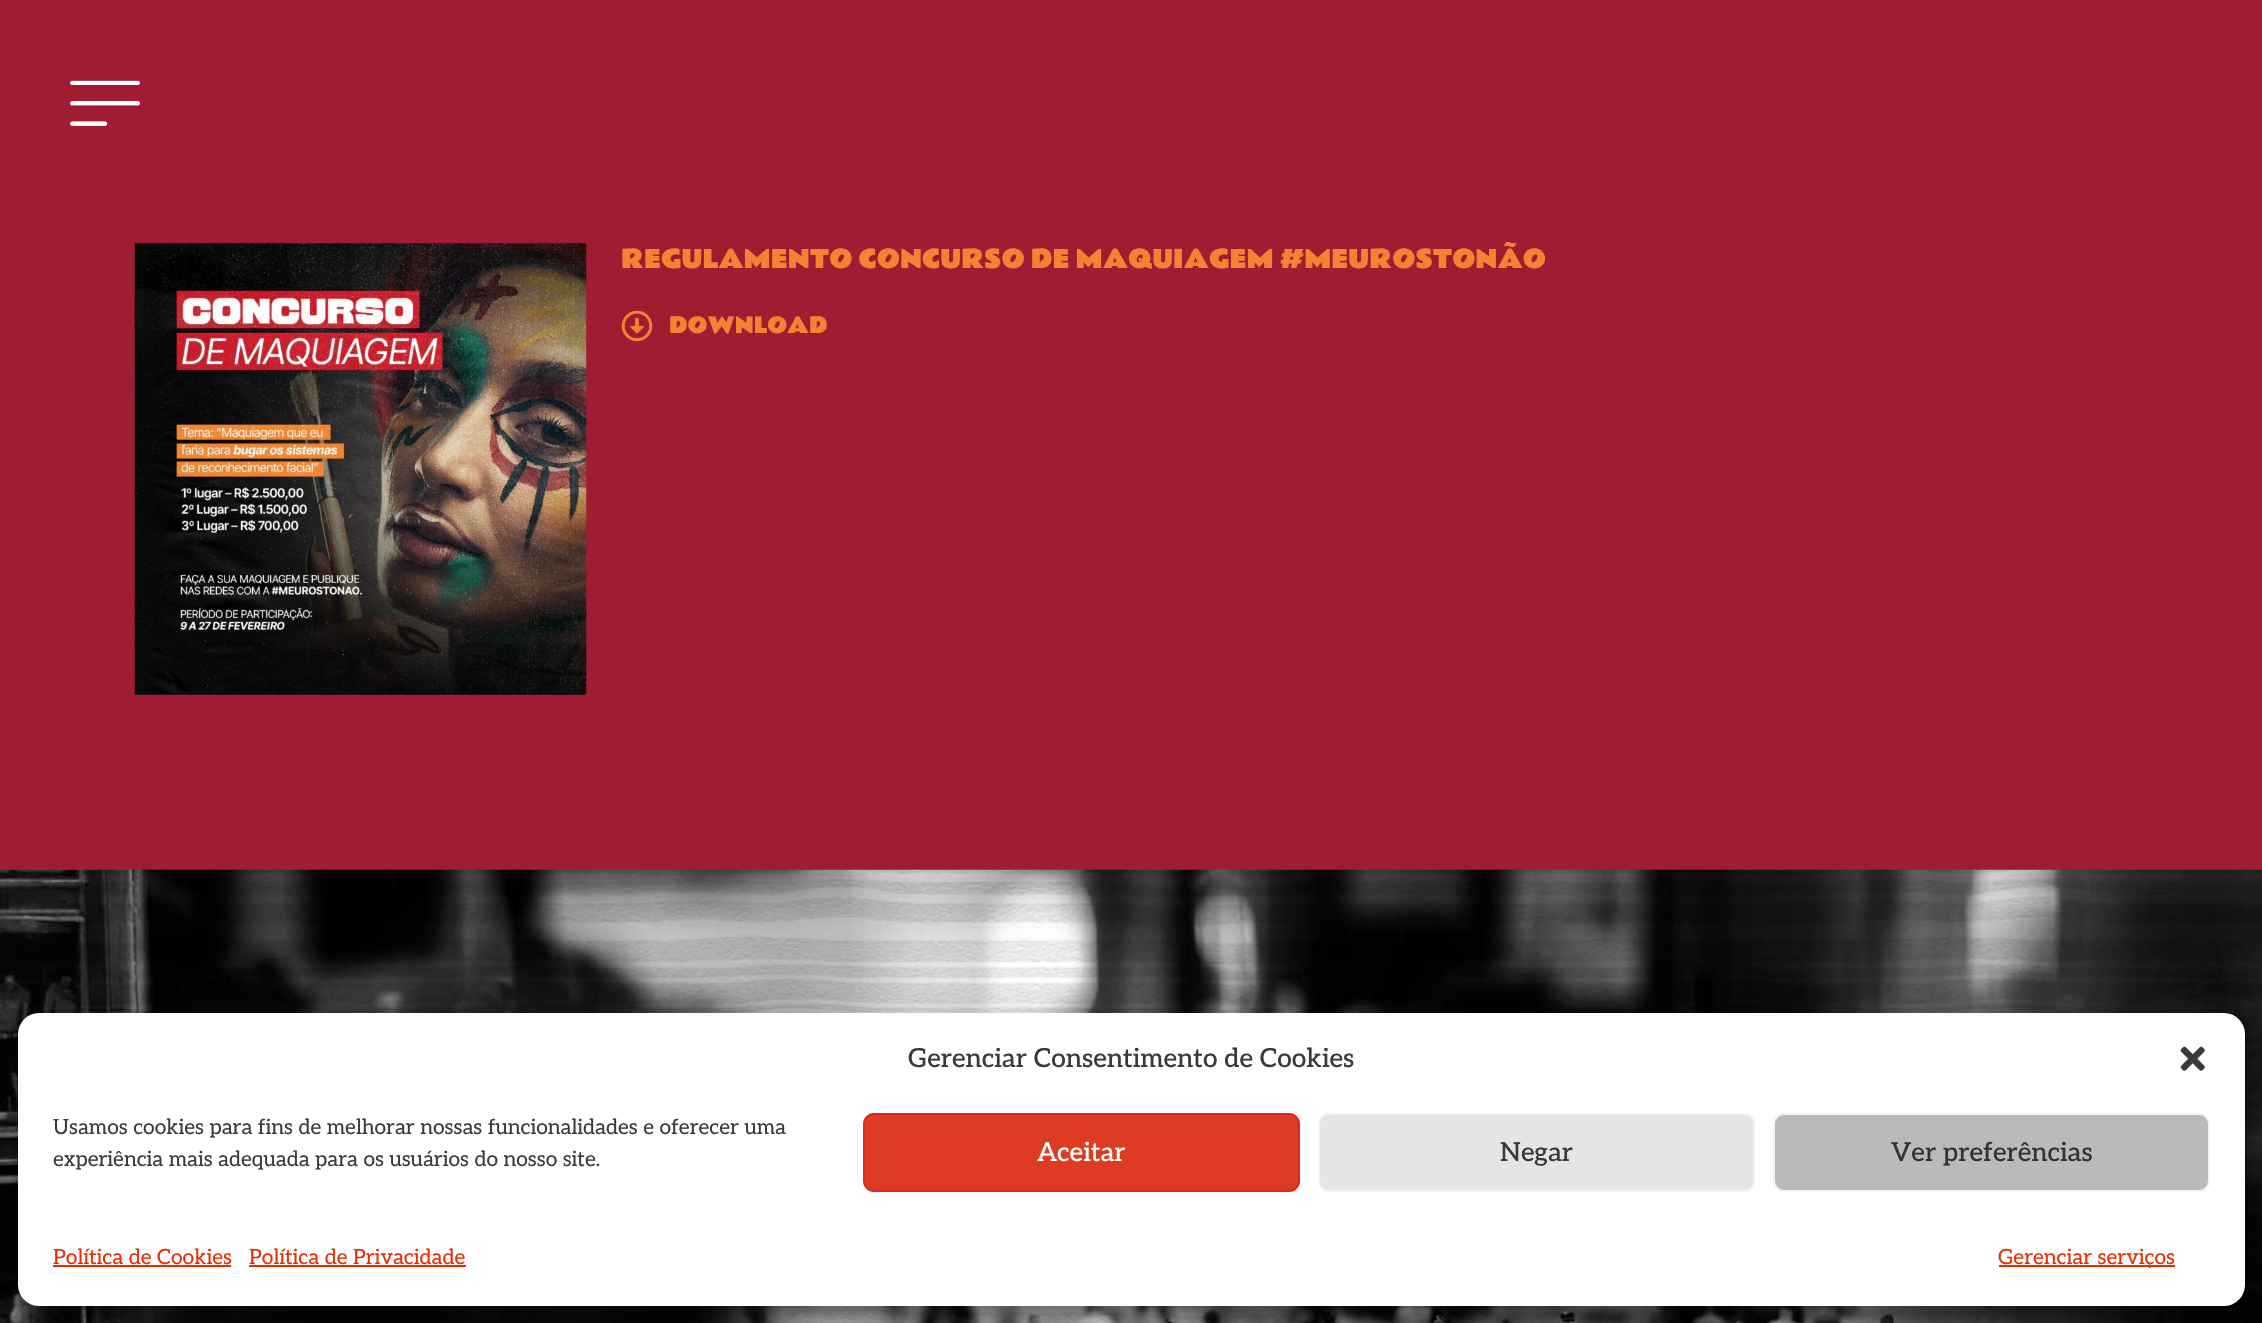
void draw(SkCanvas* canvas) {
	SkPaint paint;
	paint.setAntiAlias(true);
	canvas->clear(0xff9f1c33);
	canvas->drawImageRect(SkImages::DeferredFromEncodedData(SkData::MakeFromFileName("img1.png")), SkRect::MakeXYWH(70, 80, 70, 46), SkSamplingOptions());
	canvas->drawImageRect(SkImages::DeferredFromEncodedData(SkData::MakeFromFileName("img2.png")), SkRect::MakeXYWH(134, 243, 453, 452), SkSamplingOptions());
	SkFont f1(fontMgr->matchFamilyStyle("Rammetto One", SkFontStyle::Normal()), 24.5);
	f1.setSubpixel(true);
	paint.setColor(0xfff58232);
	canvas->drawString("REGULAMENTO CONCURSO DE MAQUIAGEM #MEUROSTONÃO", 621, 268, f1, paint);
	canvas->drawImageRect(SkImages::DeferredFromEncodedData(SkData::MakeFromFileName("img3.png")), SkRect::MakeXYWH(621, 310, 32, 32), SkSamplingOptions());
	SkFont f2(fontMgr->matchFamilyStyle("Rammetto One", SkFontStyle::Normal()), 21);
	f2.setSubpixel(true);
	canvas->drawString("DOWNLOAD", 669, 333, f2, paint);
	canvas->drawImageRect(SkImages::DeferredFromEncodedData(SkData::MakeFromFileName("img4.png")), SkRect::MakeXYWH(0, 869, 2262, 454), SkSamplingOptions());
	paint.setColor(0x3b000000);
	paint.setMaskFilter(SkMaskFilter::MakeBlur(kNormal_SkBlurStyle, 5));
	canvas->drawRoundRect(SkRect::MakeXYWH(18, 1024, 2227, 292), 21, 21, paint);
	paint.setMaskFilter(nullptr);
	paint.setColor(0x30000000);
	paint.setMaskFilter(SkMaskFilter::MakeBlur(kNormal_SkBlurStyle, 17.5));
	canvas->drawRoundRect(SkRect::MakeXYWH(18, 1031, 2227, 292), 21, 21, paint);
	paint.setMaskFilter(nullptr);
	paint.setColor(0xffffffff);
	canvas->drawRoundRect(SkRect::MakeXYWH(18, 1013, 2227, 293), 21, 21, paint);
	SkFont f3(fontMgr->matchFamilyStyle("Aleo", SkFontStyle(500, SkFontStyle::kNormal_Width, SkFontStyle::kUpright_Slant)), 26.25);
	f3.setSubpixel(true);
	paint.setColor(0xff3a3a3a);
	canvas->drawString("Gerenciar Consentimento de Cookies", 908, 1067, f3, paint);
	canvas->drawImageRect(SkImages::DeferredFromEncodedData(SkData::MakeFromFileName("img5.png")), SkRect::MakeXYWH(2180, 1046, 25, 25), SkSamplingOptions());
	SkFont f4(fontMgr->matchFamilyStyle("Aleo", SkFontStyle::Normal()), 21);
	f4.setSubpixel(true);
	canvas->drawString("Usamos cookies para fins de melhorar nossas funcionalidades e oferecer uma", 53, 1134, f4, paint);
	canvas->drawString("experiência mais adequada para os usuários do nosso site.", 53, 1166, f4, paint);
	paint.setColor(0xffdd3c23);
	canvas->drawRoundRect(SkRect::MakeXYWH(864, 1114, 435, 77), 10, 10, paint);
	paint.setStroke(true);
	paint.setStrokeWidth(2);
	paint.setColor(0xffe02323);
	canvas->drawRoundRect(SkRect::MakeXYWH(864, 1114, 435, 77), 10, 10, paint);
	paint.setStroke(false);
	paint.setColor(0xffffffff);
	canvas->drawString("Aceitar", 1037, 1161, f3, paint);
	paint.setColor(0xffe5e5e5);
	canvas->drawRoundRect(SkRect::MakeXYWH(1319, 1114, 435, 77), 10, 10, paint);
	paint.setStroke(true);
	paint.setColor(0xfff2f2f2);
	canvas->drawRoundRect(SkRect::MakeXYWH(1319, 1114, 435, 77), 10, 10, paint);
	paint.setStroke(false);
	paint.setColor(0xff3a3a3a);
	canvas->drawString("Negar", 1500, 1161, f3, paint);
	paint.setColor(0xffbababa);
	canvas->drawRoundRect(SkRect::MakeXYWH(1774, 1114, 435, 77), 10, 10, paint);
	paint.setStroke(true);
	paint.setColor(0xfff2f2f2);
	canvas->drawRoundRect(SkRect::MakeXYWH(1774, 1114, 435, 77), 10, 10, paint);
	paint.setStroke(false);
	paint.setColor(0xff333333);
	canvas->drawString("Ver preferências", 1891, 1161, f3, paint);
	paint.setColor(0xffe82e00);
	canvas->drawString("Política de Cookies", 53, 1264, f4, paint);
	canvas->drawRect(SkRect::MakeXYWH(53, 1265, 178, 2), paint);
	canvas->drawString("Política de Privacidade", 249, 1264, f4, paint);
	canvas->drawRect(SkRect::MakeXYWH(249, 1265, 217, 2), paint);
	canvas->drawRect(SkRect::MakeXYWH(1999, 1265, 176, 2), paint);
	canvas->drawString("Gerenciar serviços", 1998, 1264, f4, paint);
}
